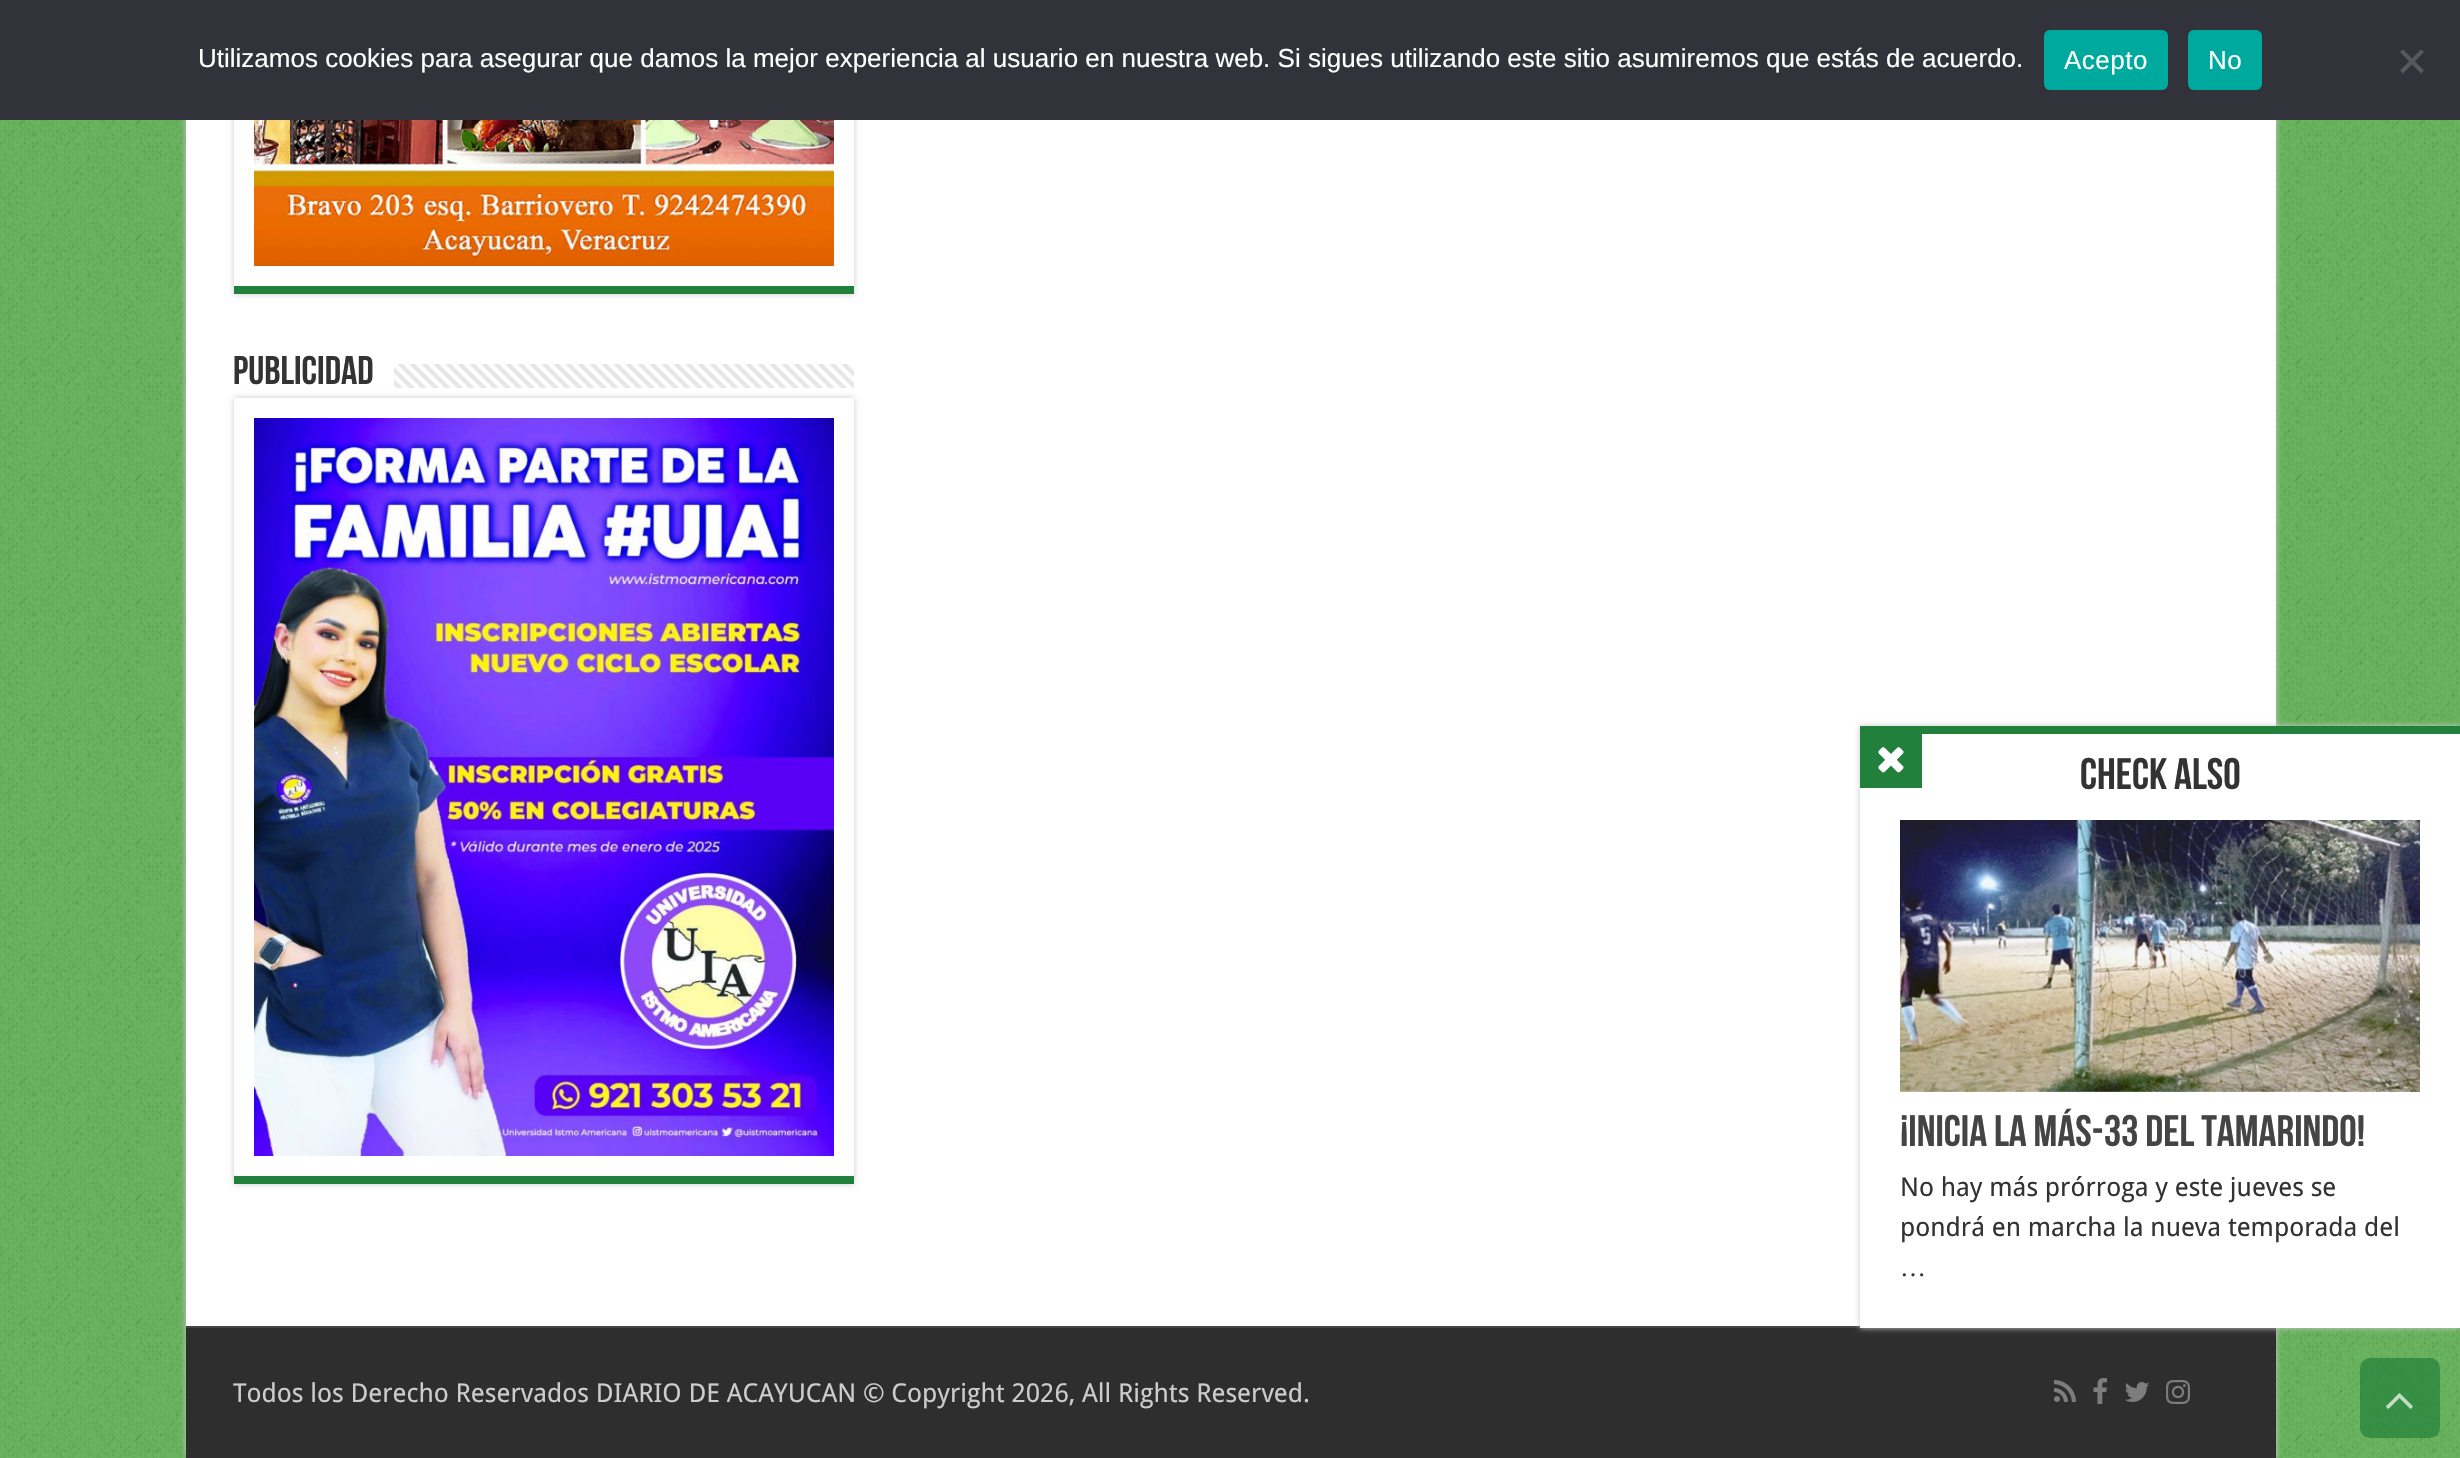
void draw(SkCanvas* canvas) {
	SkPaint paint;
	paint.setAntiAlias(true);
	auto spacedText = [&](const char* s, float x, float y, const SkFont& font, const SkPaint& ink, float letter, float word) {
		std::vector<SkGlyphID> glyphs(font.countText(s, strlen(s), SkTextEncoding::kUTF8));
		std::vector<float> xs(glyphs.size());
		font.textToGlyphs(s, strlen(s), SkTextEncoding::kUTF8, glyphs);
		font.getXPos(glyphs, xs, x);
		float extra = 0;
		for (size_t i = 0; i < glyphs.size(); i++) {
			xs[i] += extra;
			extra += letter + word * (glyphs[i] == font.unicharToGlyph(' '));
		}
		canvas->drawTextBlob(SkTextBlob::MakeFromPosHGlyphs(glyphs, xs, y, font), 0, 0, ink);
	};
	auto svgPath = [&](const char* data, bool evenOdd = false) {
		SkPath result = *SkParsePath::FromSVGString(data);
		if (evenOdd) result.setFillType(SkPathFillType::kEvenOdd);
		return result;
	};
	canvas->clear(0xff44a635);
	canvas->drawImageRect(SkImages::DeferredFromEncodedData(SkData::MakeFromFileName("img1.png")), SkRect::MakeXYWH(0, 120, 2460, 1338), SkSamplingOptions());
	paint.setColor(0xffcacaca);
	paint.setMaskFilter(SkMaskFilter::MakeBlur(kNormal_SkBlurStyle, 3));
	canvas->drawRect(SkRect::MakeXYWH(186, -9, 2090, 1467), paint);
	paint.setMaskFilter(nullptr);
	paint.setColor(0xffffffff);
	canvas->drawRect(SkRect::MakeXYWH(186, 120, 2090, 1206), paint);
	canvas->save();
	canvas->clipPath(svgPath("M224 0H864V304H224ZM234-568H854V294H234Z", true), true);
	paint.setColor(0xffcacaca);
	paint.setMaskFilter(SkMaskFilter::MakeBlur(kNormal_SkBlurStyle, 3));
	canvas->drawRect(SkRect::MakeXYWH(234, -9, 620, 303), paint);
	paint.setMaskFilter(nullptr);
	canvas->restore();
	paint.setColor(0xff32323a);
	canvas->drawRect(SkRect::MakeXYWH(0, 0, 2460, 120), paint);
	SkFont f1(fontMgr->matchFamilyStyle("Liberation Sans", SkFontStyle::Normal()), 26);
	f1.setSubpixel(true);
	paint.setColor(0xffffffff);
	canvas->drawString("Utilizamos cookies para asegurar que damos la mejor experiencia al usuario en nuestra web. Si sigues utilizando este sitio asumiremos que estás de acuerdo.", 198, 67, f1, paint);
	paint.setColor(0xff00a99d);
	canvas->drawRoundRect(SkRect::MakeXYWH(2044, 30, 124, 60), 6, 6, paint);
	paint.setColor(0xffffffff);
	spacedText("Acepto", 2064, 69, f1, paint, 0.5, 0);
	paint.setColor(0xff00a99d);
	canvas->drawRoundRect(SkRect::MakeXYWH(2188, 30, 74, 60), 6, 6, paint);
	paint.setColor(0xffffffff);
	spacedText("No", 2208, 69, f1, paint, 0.5, 0);
	paint.setColor(0xff59595d);
	canvas->drawPath(svgPath("M2421 49.5L2424 52L2403 73.5L2400 70.5Z"), paint);
	canvas->drawPath(svgPath("M2400 52L2403 49.5L2424 70.5L2421 73.5Z"), paint);
	paint.setColor(0xff21803b);
	canvas->drawRect(SkRect::MakeXYWH(234, 286, 620, 8), paint);
	canvas->drawImageRect(SkImages::DeferredFromEncodedData(SkData::MakeFromFileName("img2.png")), SkRect::MakeXYWH(254, 120, 580, 146), SkSamplingOptions());
	SkFont f2(fontMgr->matchFamilyStyle("Bebas Neue", SkFontStyle::Bold()), 40);
	f2.setSubpixel(true);
	paint.setColor(0xff333333);
	canvas->drawString("PUBLICIDAD", 233, 384, f2, paint);
	canvas->drawImageRect(SkImages::DeferredFromEncodedData(SkData::MakeFromFileName("img3.png")), SkRect::MakeXYWH(394, 364, 460, 24), SkSamplingOptions());
	canvas->save();
	canvas->clipPath(svgPath("M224 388H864V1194H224ZM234 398H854V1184H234Z", true), true);
	paint.setColor(0xffcacaca);
	paint.setMaskFilter(SkMaskFilter::MakeBlur(kNormal_SkBlurStyle, 3));
	canvas->drawRect(SkRect::MakeXYWH(234, 398, 620, 786), paint);
	paint.setMaskFilter(nullptr);
	canvas->restore();
	paint.setColor(0xff21803b);
	canvas->drawRect(SkRect::MakeXYWH(234, 1176, 620, 8), paint);
	canvas->drawImageRect(SkImages::DeferredFromEncodedData(SkData::MakeFromFileName("img4.png")), SkRect::MakeXYWH(254, 418, 580, 738), SkSamplingOptions());
	paint.setColor(0xff2e2e2e);
	canvas->drawRect(SkRect::MakeXYWH(186, 1328, 2090, 130), paint);
	paint.setColor(0xff444444);
	canvas->drawRect(SkRect::MakeXYWH(186, 1326, 1674, 2), paint);
	paint.setColor(0xffcacaca);
	paint.setMaskFilter(SkMaskFilter::MakeBlur(kNormal_SkBlurStyle, 3));
	canvas->drawRect(SkRect::MakeXYWH(1860, 726, 600, 602), paint);
	paint.setMaskFilter(nullptr);
	paint.setColor(0xffffffff);
	canvas->drawRect(SkRect::MakeXYWH(1860, 734, 600, 594), paint);
	paint.setColor(0xff21803b);
	canvas->drawRect(SkRect::MakeXYWH(1860, 726, 600, 8), paint);
	canvas->drawRect(SkRect::MakeXYWH(1860, 734, 62, 54), paint);
	canvas->drawImageRect(SkImages::DeferredFromEncodedData(SkData::MakeFromFileName("img5.png")), SkRect::MakeXYWH(1878, 747, 26, 26), SkSamplingOptions());
	SkFont f3(fontMgr->matchFamilyStyle("Bebas Neue", SkFontStyle::Bold()), 44);
	f3.setSubpixel(true);
	paint.setColor(0xff333333);
	canvas->drawString("Check Also", 2080, 789, f3, paint);
	canvas->drawImageRect(SkImages::DeferredFromEncodedData(SkData::MakeFromFileName("img6.png")), SkRect::MakeXYWH(1900, 820, 520, 272), SkSamplingOptions());
	paint.setColor(0xff444444);
	canvas->drawString("¡Inicia la Más-33 del Tamarindo!", 1900, 1146, f3, paint);
	SkFont f4(fontMgr->matchFamilyStyle("Droid Sans", SkFontStyle::Normal()), 26);
	f4.setSubpixel(true);
	paint.setColor(0xff333333);
	canvas->drawString("No hay más prórroga y este jueves se", 1900, 1196, f4, paint);
	canvas->drawString("pondrá en marcha la nueva temporada del", 1900, 1236, f4, paint);
	SkFont f5(fontMgr->matchFamilyStyle("Liberation Serif", SkFontStyle::Normal()), 26);
	f5.setSubpixel(true);
	canvas->drawString("…", 1900, 1276, f5, paint);
	paint.setColor(0xffcccccc);
	canvas->drawString("Todos los Derecho Reservados DIARIO DE ACAYUCAN © Copyright 2026, All Rights Reserved.", 233, 1402, f4, paint);
	canvas->drawImageRect(SkImages::DeferredFromEncodedData(SkData::MakeFromFileName("img7.png")), SkRect::MakeXYWH(2054, 1380, 22, 22), SkSamplingOptions());
	canvas->drawImageRect(SkImages::DeferredFromEncodedData(SkData::MakeFromFileName("img8.png")), SkRect::MakeXYWH(2093, 1378, 14, 26), SkSamplingOptions());
	canvas->drawImageRect(SkImages::DeferredFromEncodedData(SkData::MakeFromFileName("img9.png")), SkRect::MakeXYWH(2125, 1382, 24, 20), SkSamplingOptions());
	canvas->drawImageRect(SkImages::DeferredFromEncodedData(SkData::MakeFromFileName("img10.png")), SkRect::MakeXYWH(2166, 1380, 24, 24), SkSamplingOptions());
	paint.setColor(0xb321803b);
	canvas->drawRoundRect(SkRect::MakeXYWH(2360, 1358, 80, 80), 10, 10, paint);
	canvas->drawImageRect(SkImages::DeferredFromEncodedData(SkData::MakeFromFileName("img11.png")), SkRect::MakeXYWH(2386, 1393, 27, 16), SkSamplingOptions());
}
